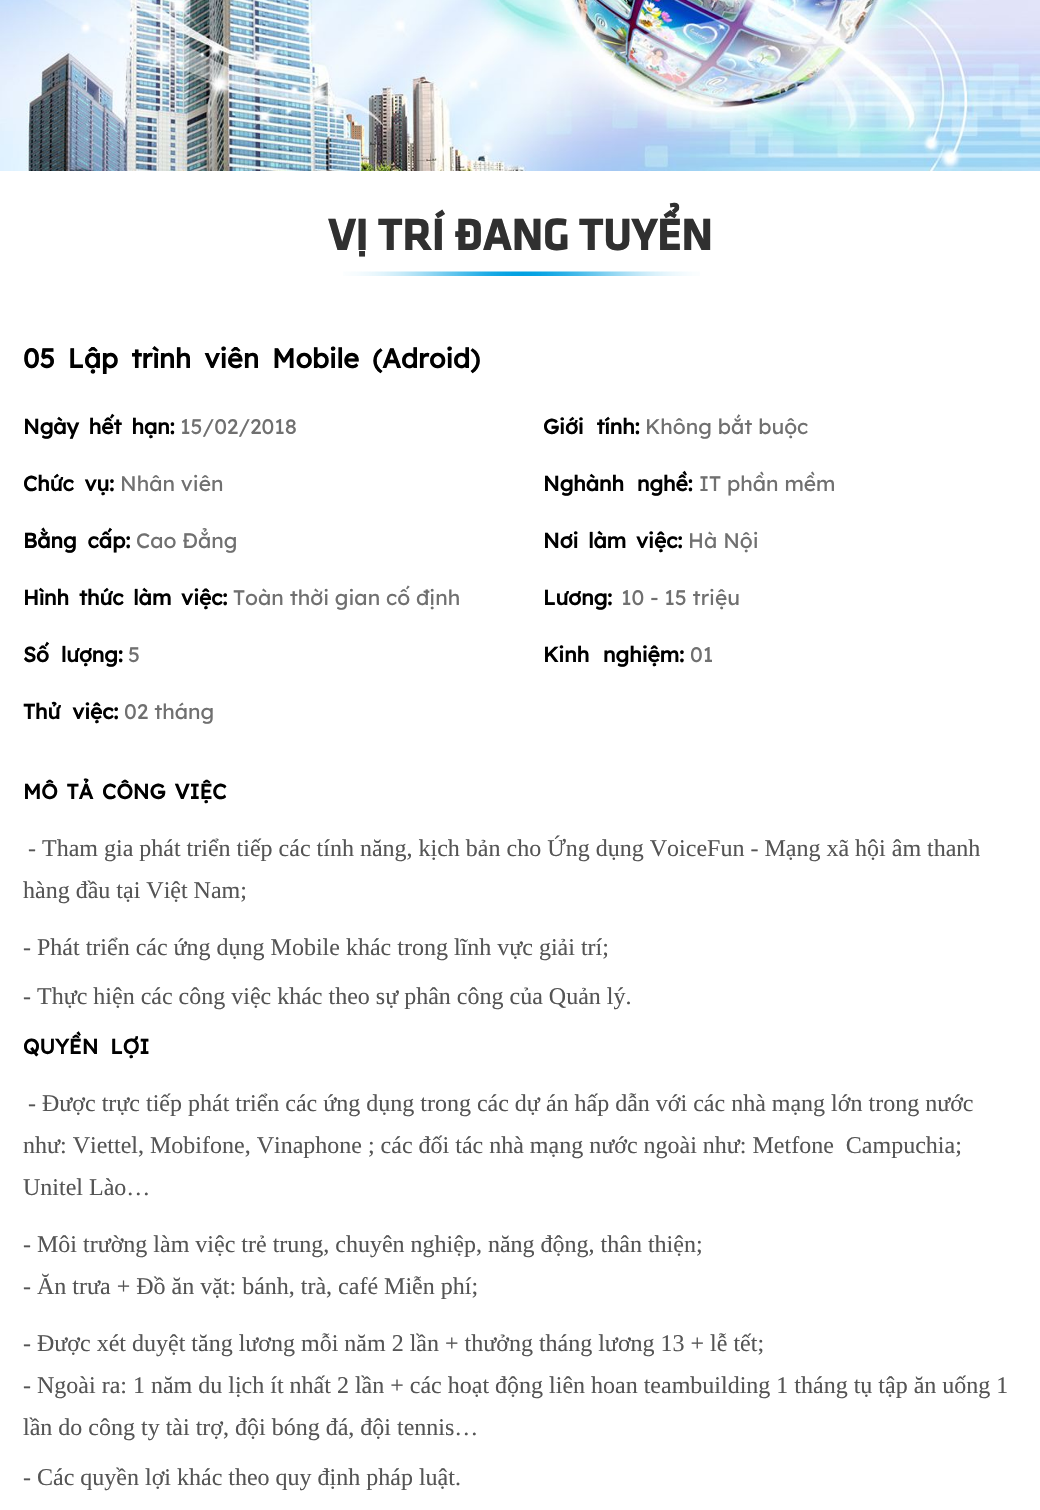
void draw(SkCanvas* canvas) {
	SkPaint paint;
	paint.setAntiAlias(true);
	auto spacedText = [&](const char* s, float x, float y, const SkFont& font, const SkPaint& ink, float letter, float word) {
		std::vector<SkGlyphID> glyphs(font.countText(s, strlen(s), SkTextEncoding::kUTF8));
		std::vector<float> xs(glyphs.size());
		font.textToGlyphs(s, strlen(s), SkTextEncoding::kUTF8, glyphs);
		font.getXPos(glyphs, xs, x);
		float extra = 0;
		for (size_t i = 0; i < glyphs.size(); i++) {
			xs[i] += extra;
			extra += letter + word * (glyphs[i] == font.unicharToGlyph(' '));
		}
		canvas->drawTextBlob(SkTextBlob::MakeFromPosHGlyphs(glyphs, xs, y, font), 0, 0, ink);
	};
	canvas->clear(0xffffffff);
	canvas->drawImageRect(SkImages::DeferredFromEncodedData(SkData::MakeFromFileName("img1.png")), SkRect::MakeXYWH(0, 0, 1040, 171), SkSamplingOptions());
	SkFont f1(fontMgr->matchFamilyStyle("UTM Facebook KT", SkFontStyle::Bold()), 45);
	f1.setSubpixel(true);
	paint.setColor(0xff303030);
	canvas->drawString("VỊ TRÍ ĐANG TUYỂN", 328, 250, f1, paint);
	canvas->drawImageRect(SkImages::DeferredFromEncodedData(SkData::MakeFromFileName("img2.png")), SkRect::MakeXYWH(343, 271, 357, 5), SkSamplingOptions());
	SkFont f2(fontMgr->matchFamilyStyle("Lexend", SkFontStyle::Bold()), 27);
	f2.setSubpixel(true);
	paint.setColor(0xff000000);
	spacedText("05 Lập trình viên Mobile (Adroid)", 23, 368, f2, paint, 0, 5.5);
	SkFont f3(fontMgr->matchFamilyStyle("Lexend", SkFontStyle::Bold()), 21);
	f3.setSubpixel(true);
	spacedText("Ngày hết hạn:", 23, 434, f3, paint, 0, 4);
	SkFont f4(fontMgr->matchFamilyStyle("Lexend", SkFontStyle::Normal()), 21);
	f4.setSubpixel(true);
	paint.setColor(0xff707070);
	canvas->drawString("15/02/2018", 180, 434, f4, paint);
	paint.setColor(0xff000000);
	spacedText("Chức vụ:", 23, 491, f3, paint, 0, 5);
	paint.setColor(0xff707070);
	canvas->drawString("Nhân viên", 120, 491, f4, paint);
	paint.setColor(0xff000000);
	spacedText("Bằng cấp:", 23, 548, f3, paint, 0, 5);
	paint.setColor(0xff707070);
	canvas->drawString("Cao Đẳng", 136, 548, f4, paint);
	paint.setColor(0xff000000);
	spacedText("Hình thức làm việc:", 23, 605, f3, paint, 0, 4);
	paint.setColor(0xff707070);
	canvas->drawString("Toàn thời gian cố định", 233, 605, f4, paint);
	paint.setColor(0xff000000);
	spacedText("Số lượng:", 23, 662, f3, paint, 0, 6);
	paint.setColor(0xff707070);
	canvas->drawString("5", 128, 662, f4, paint);
	paint.setColor(0xff000000);
	spacedText("Thử việc:", 23, 719, f3, paint, 0, 6);
	paint.setColor(0xff707070);
	canvas->drawString("02 tháng", 124, 719, f4, paint);
	paint.setColor(0xff000000);
	spacedText("Giới tính:", 543, 434, f3, paint, 0, 7);
	paint.setColor(0xff707070);
	canvas->drawString("Không bắt buộc", 645, 434, f4, paint);
	paint.setColor(0xff000000);
	spacedText("Nghành nghề:", 543, 491, f3, paint, 0, 7);
	paint.setColor(0xff707070);
	canvas->drawString("IT phần mềm", 699, 491, f4, paint);
	paint.setColor(0xff000000);
	spacedText("Nơi làm việc:", 543, 548, f3, paint, 0, 4);
	paint.setColor(0xff707070);
	canvas->drawString("Hà Nội", 688, 548, f4, paint);
	paint.setColor(0xff000000);
	canvas->drawString("Lương:", 543, 605, f3, paint);
	paint.setColor(0xff707070);
	canvas->drawString("10 - 15 triệu", 621, 605, f4, paint);
	paint.setColor(0xff000000);
	spacedText("Kinh nghiệm:", 543, 662, f3, paint, 0, 8);
	paint.setColor(0xff707070);
	canvas->drawString("01", 690, 662, f4, paint);
	paint.setColor(0xff000000);
	spacedText("MÔ TẢ CÔNG VIỆC", 23, 799, f3, paint, 0, 3);
	SkFont f5(fontMgr->matchFamilyStyle("Liberation Serif", SkFontStyle::Normal()), 24);
	f5.setSubpixel(true);
	paint.setColor(0xff555555);
	canvas->drawString("- Tham gia phát triển tiếp các tính năng, kịch bản cho Ứng dụng VoiceFun - Mạng xã hội âm thanh", 28, 856, f5, paint);
	canvas->drawString("hàng đầu tại Việt Nam;", 23, 898, f5, paint);
	canvas->drawString("- Phát triển các ứng dụng Mobile khác trong lĩnh vực giải trí;", 23, 955, f5, paint);
	canvas->drawString("- Thực hiện các công việc khác theo sự phân công của Quản lý.", 23, 1004, f5, paint);
	paint.setColor(0xff000000);
	spacedText("QUYỀN LỢI", 23, 1054, f3, paint, 0, 6);
	paint.setColor(0xff555555);
	canvas->drawString("- Được trực tiếp phát triển các ứng dụng trong các dự án hấp dẫn với các nhà mạng lớn trong nước", 28, 1111, f5, paint);
	canvas->drawString("như: Viettel, Mobifone, Vinaphone ; các đối tác nhà mạng nước ngoài như: Metfone  Campuchia;", 23, 1153, f5, paint);
	canvas->drawString("Unitel Lào…", 23, 1195, f5, paint);
	canvas->drawString("- Môi trường làm việc trẻ trung, chuyên nghiệp, năng động, thân thiện;", 23, 1252, f5, paint);
	canvas->drawString("- Ăn trưa + Đồ ăn vặt: bánh, trà, café Miễn phí;", 23, 1294, f5, paint);
	canvas->drawString("- Được xét duyệt tăng lương mỗi năm 2 lần + thưởng tháng lương 13 + lễ tết;", 23, 1351, f5, paint);
	canvas->drawString("- Ngoài ra: 1 năm du lịch ít nhất 2 lần + các hoạt động liên hoan teambuilding 1 tháng tụ tập ăn uống 1", 23, 1393, f5, paint);
	canvas->drawString("lần do công ty tài trợ, đội bóng đá, đội tennis…", 23, 1435, f5, paint);
	canvas->drawString("- Các quyền lợi khác theo quy định pháp luật.", 23, 1485, f5, paint);
}
